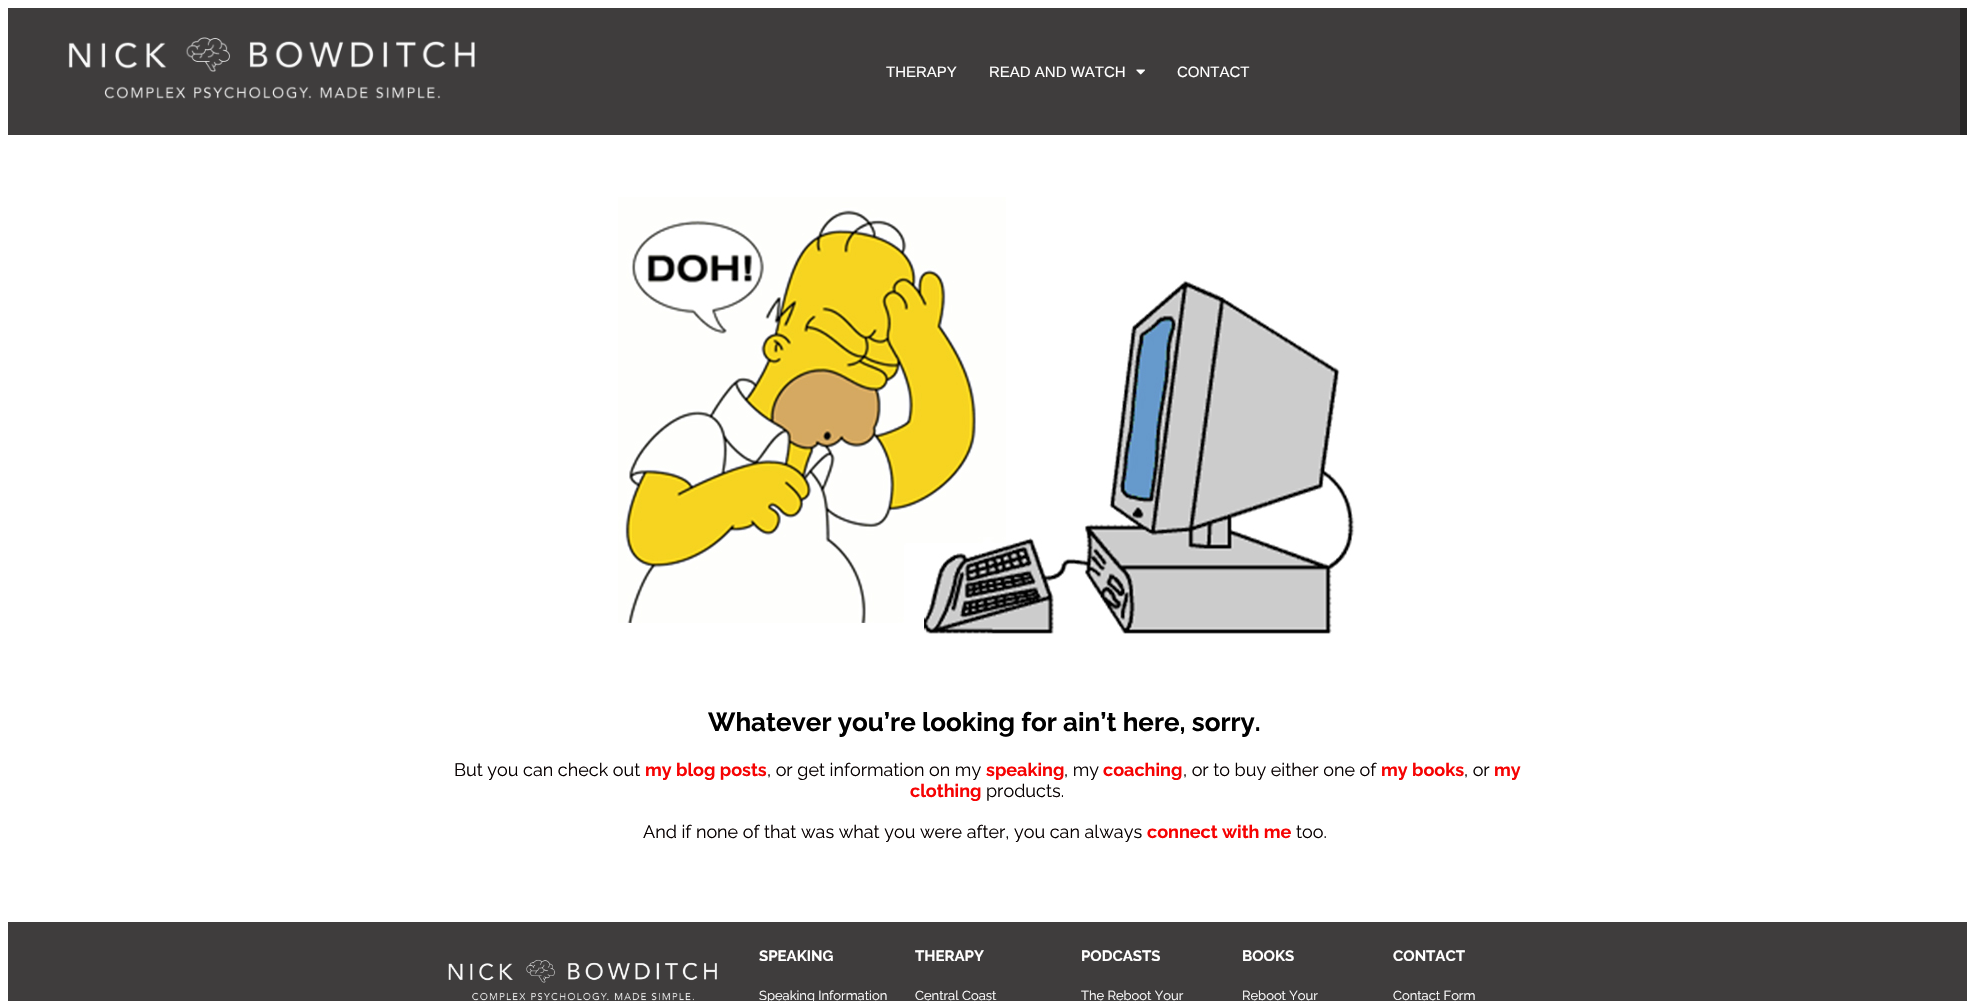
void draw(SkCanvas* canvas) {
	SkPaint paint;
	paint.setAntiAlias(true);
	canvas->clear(0xffffffff);
	paint.setColor(0xff282727);
	canvas->drawRect(SkRect::MakeXYWH(1960, 8, 7, 127), paint);
	paint.setColor(0xff3f3d3d);
	canvas->drawRect(SkRect::MakeXYWH(8, 8, 1952, 127), paint);
	canvas->drawImageRect(SkImages::DeferredFromEncodedData(SkData::MakeFromFileName("img1.png")), SkRect::MakeXYWH(68, 37, 407, 62), SkSamplingOptions());
	SkFont f1(fontMgr->matchFamilyStyle("Liberation Sans", SkFontStyle::Normal()), 15);
	f1.setSubpixel(true);
	paint.setColor(0xffffffff);
	canvas->drawString("THERAPY", 886, 77, f1, paint);
	canvas->drawString("READ AND WATCH", 989, 77, f1, paint);
	canvas->drawImageRect(SkImages::DeferredFromEncodedData(SkData::MakeFromFileName("img2.png")), SkRect::MakeXYWH(1136, 69, 9, 6), SkSamplingOptions());
	canvas->drawString("CONTACT", 1177, 77, f1, paint);
	canvas->drawImageRect(SkImages::DeferredFromEncodedData(SkData::MakeFromFileName("img3.png")), SkRect::MakeXYWH(618, 197, 737, 437), SkSamplingOptions());
	SkFont f2(fontMgr->matchFamilyStyle("Raleway", SkFontStyle::Bold()), 26);
	f2.setSubpixel(true);
	paint.setColor(0xff000000);
	canvas->drawString("Whatever you’re looking for ain’t here, sorry.", 708, 731, f2, paint);
	SkFont f3(fontMgr->matchFamilyStyle("Raleway", SkFontStyle::Normal()), 18);
	f3.setSubpixel(true);
	paint.setColor(0xff070000);
	canvas->drawString("But you can check out", 454, 776, f3, paint);
	SkFont f4(fontMgr->matchFamilyStyle("Raleway", SkFontStyle::Bold()), 18);
	f4.setSubpixel(true);
	paint.setColor(0xfff60303);
	canvas->drawString("my blog posts", 645, 776, f4, paint);
	paint.setColor(0xff070000);
	canvas->drawString(", or get information on my", 767, 776, f3, paint);
	paint.setColor(0xfff60303);
	canvas->drawString("speaking", 986, 776, f4, paint);
	paint.setColor(0xff070000);
	canvas->drawString(", my", 1064, 776, f3, paint);
	paint.setColor(0xfff60303);
	canvas->drawString("coaching", 1103, 776, f4, paint);
	paint.setColor(0xff070000);
	canvas->drawString(", or to buy either one of", 1183, 776, f3, paint);
	paint.setColor(0xfff60303);
	canvas->drawString("my books", 1381, 776, f4, paint);
	paint.setColor(0xff070000);
	canvas->drawString(", or", 1464, 776, f3, paint);
	paint.setColor(0xfff60303);
	canvas->drawString("my", 1494, 776, f4, paint);
	canvas->drawString("clothing", 910, 797, f4, paint);
	paint.setColor(0xff070000);
	canvas->drawString("products.", 986, 797, f3, paint);
	canvas->drawString("And if none of that was what you were after, you can always", 643, 838, f3, paint);
	paint.setColor(0xfff60303);
	canvas->drawString("connect with me", 1147, 838, f4, paint);
	paint.setColor(0xff070000);
	canvas->drawString("too.", 1296, 838, f3, paint);
	paint.setColor(0xff3f3d3d);
	canvas->drawRect(SkRect::MakeXYWH(8, 922, 1959, 79), paint);
	canvas->drawImageRect(SkImages::DeferredFromEncodedData(SkData::MakeFromFileName("img4.png")), SkRect::MakeXYWH(448, 959, 269, 42), SkSamplingOptions());
	SkFont f5(fontMgr->matchFamilyStyle("Raleway", SkFontStyle::Bold()), 15);
	f5.setSubpixel(true);
	paint.setColor(0xffffffff);
	canvas->drawString("SPEAKING", 759, 961, f5, paint);
	SkFont f6(fontMgr->matchFamilyStyle("Raleway", SkFontStyle::Normal()), 13);
	f6.setSubpixel(true);
	canvas->drawString("Speaking Information", 759, 1000, f6, paint);
	canvas->drawString("THERAPY", 915, 961, f5, paint);
	canvas->drawString("Central Coast", 915, 1000, f6, paint);
	canvas->drawString("PODCASTS", 1081, 961, f5, paint);
	canvas->drawString("The Reboot Your", 1081, 1000, f6, paint);
	canvas->drawString("BOOKS", 1242, 961, f5, paint);
	canvas->drawString("Reboot Your", 1242, 1000, f6, paint);
	canvas->drawString("CONTACT", 1393, 961, f5, paint);
	canvas->drawString("Contact Form", 1393, 1000, f6, paint);
}
